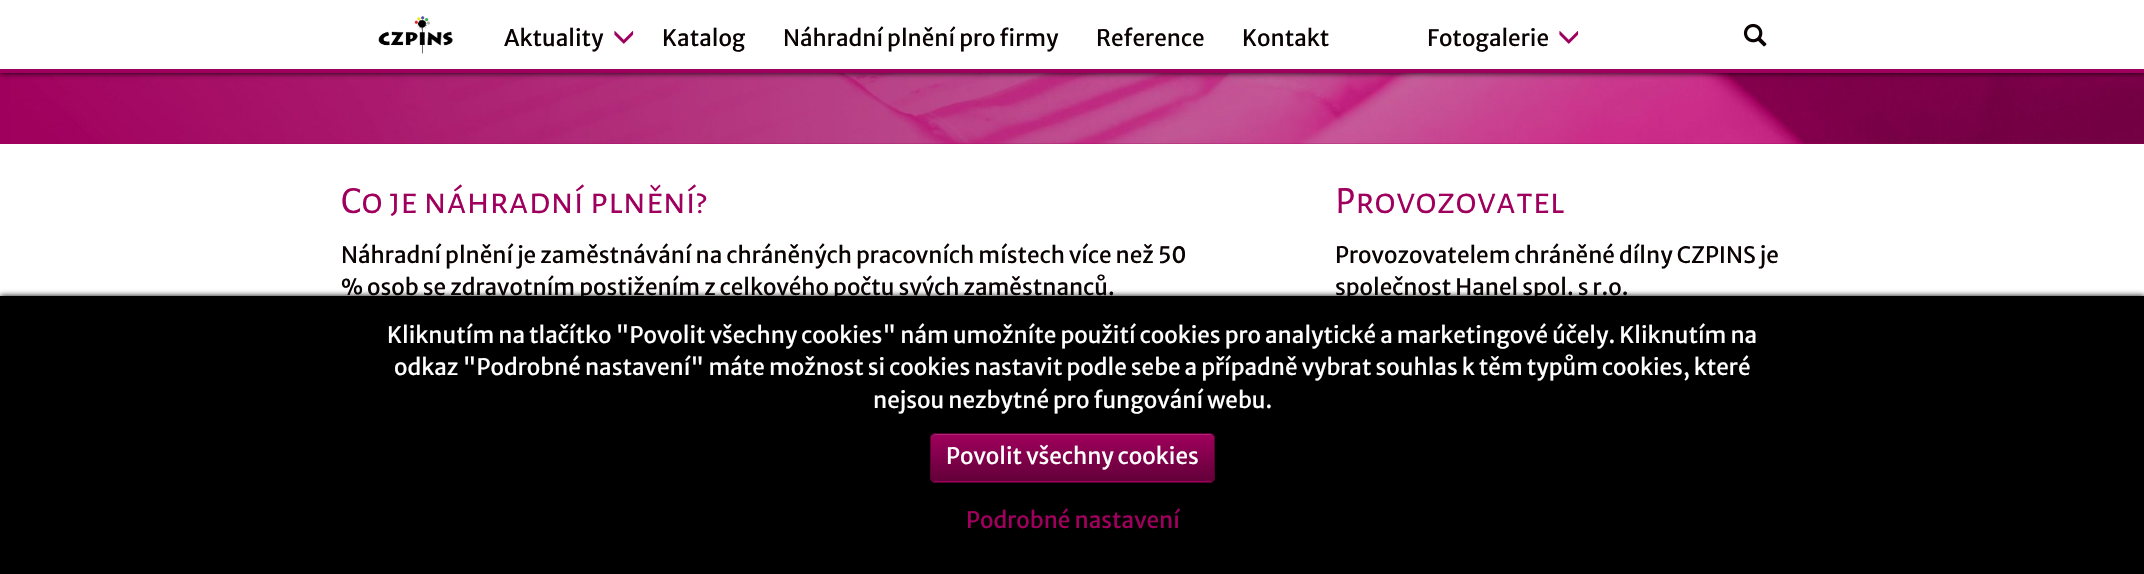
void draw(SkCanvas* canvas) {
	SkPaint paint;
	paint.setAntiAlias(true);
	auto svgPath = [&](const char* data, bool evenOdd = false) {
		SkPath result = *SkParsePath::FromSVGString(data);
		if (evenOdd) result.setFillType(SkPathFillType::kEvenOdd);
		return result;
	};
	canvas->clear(0xffffffff);
	paint.setColor(0xffa0005d);
	canvas->drawRect(SkRect::MakeXYWH(0, 73, 2144, 71), paint);
	canvas->drawImageRect(SkImages::DeferredFromEncodedData(SkData::MakeFromFileName("img4.png")), SkRect::MakeXYWH(10, 73, 2134, 71), SkSamplingOptions());
	paint.setColor(0xff000000);
	paint.setMaskFilter(SkMaskFilter::MakeBlur(kNormal_SkBlurStyle, 3));
	canvas->drawRect(SkRect::MakeXYWH(0, 0, 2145, 73), paint);
	paint.setMaskFilter(nullptr);
	paint.setColor(0xffa0005d);
	canvas->drawRect(SkRect::MakeXYWH(0, 69, 2144, 4), paint);
	paint.setColor(0xffffffff);
	canvas->drawRect(SkRect::MakeXYWH(0, 0, 2144, 69), paint);
	canvas->drawImageRect(SkImages::DeferredFromEncodedData(SkData::MakeFromFileName("img1.png")), SkRect::MakeXYWH(378, 16, 75, 38), SkSamplingOptions());
	SkFont f1(fontMgr->matchFamilyStyle("Merriweather Sans", SkFontStyle::Normal()), 22.5);
	f1.setSubpixel(true);
	paint.setColor(0xff0a0203);
	canvas->drawString("Aktuality", 504, 46, f1, paint);
	canvas->drawImageRect(SkImages::DeferredFromEncodedData(SkData::MakeFromFileName("img2.png")), SkRect::MakeXYWH(614, 31, 20, 13), SkSamplingOptions());
	canvas->drawString("Katalog", 662, 46, f1, paint);
	canvas->drawString("Náhradní plnění pro firmy", 783, 46, f1, paint);
	canvas->drawString("Reference", 1096, 46, f1, paint);
	canvas->drawString("Kontakt", 1242, 46, f1, paint);
	canvas->drawString("Fotogalerie", 1427, 46, f1, paint);
	canvas->drawImageRect(SkImages::DeferredFromEncodedData(SkData::MakeFromFileName("img2.png")), SkRect::MakeXYWH(1559, 31, 20, 13), SkSamplingOptions());
	canvas->drawImageRect(SkImages::DeferredFromEncodedData(SkData::MakeFromFileName("img3.png")), SkRect::MakeXYWH(1743, 23, 24, 24), SkSamplingOptions());
	SkFont f2(fontMgr->matchFamilyStyle("Alegreya Sans SC", SkFontStyle::Normal()), 38.75);
	f2.setSubpixel(true);
	paint.setColor(0xffa0005d);
	canvas->drawString("Co je náhradní plnění?", 341, 213, f2, paint);
	paint.setColor(0xff0a0203);
	canvas->drawString("Náhradní plnění je zaměstnávání na chráněných pracovních místech více než 50", 341, 263, f1, paint);
	canvas->drawString("% osob se zdravotním postižením z celkového počtu svých zaměstnanců.", 341, 295, f1, paint);
	paint.setColor(0xffa0005d);
	canvas->drawString("Provozovatel", 1335, 213, f2, paint);
	paint.setColor(0xff0a0203);
	canvas->drawString("Provozovatelem chráněné dílny CZPINS je", 1335, 263, f1, paint);
	canvas->drawString("společnost Hanel spol. s r.o.", 1335, 295, f1, paint);
	paint.setColor(0xff000000);
	paint.setMaskFilter(SkMaskFilter::MakeBlur(kNormal_SkBlurStyle, 3));
	canvas->drawRect(SkRect::MakeXYWH(0, 296, 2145, 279), paint);
	paint.setMaskFilter(nullptr);
	canvas->drawRect(SkRect::MakeXYWH(0, 296, 2144, 278), paint);
	paint.setColor(0xffffffff);
	canvas->drawString("Kliknutím na tlačítko \"Povolit všechny cookies\" nám umožníte použití cookies pro analytické a marketingové účely. Kliknutím na", 387, 343, f1, paint);
	canvas->drawString("odkaz \"Podrobné nastavení\" máte možnost si cookies nastavit podle sebe a případně vybrat souhlas k těm typům cookies, které", 394, 375, f1, paint);
	canvas->drawString("nejsou nezbytné pro fungování webu.", 873, 408, f1, paint);
	paint.setColor(0xffa0005d);
	canvas->drawRoundRect(SkRect::MakeXYWH(930, 433, 285, 50), 6, 6, paint);
	canvas->save();
	canvas->clipPath(svgPath("M936 433H1209C1212.5 433 1215 435.5 1215 439V477C1215 480.5 1212.5 483 1209 483H936C932.5 483 930 480.5 930 477V439C930 435.5 932.5 433 936 433Z"), true);
	{
		const SkColor colors[] = {0xffa0005d, 0xff630039};
		const float stops[] = {0, 1};
		const SkPoint ends[] = {{1073, 434}, {1073, 481}};
		paint.setShader(SkGradientShader::MakeLinear(ends, colors, stops, 2, SkTileMode::kClamp));
		paint.setAlpha(255);
	}
	canvas->drawRect(SkRect::MakeXYWH(930, 434, 285, 47), paint);
	canvas->restore();
	paint.setShader(nullptr);
	paint.setColor(0xffad2675);
	canvas->drawPath(svgPath("M936 435H1209C1212 435 1214 437 1214 440V439C1214 436 1212 434 1209 434H936C933 434 931 436 931 439V440C931 437 933 435 936 435Z"), paint);
	paint.setStroke(true);
	paint.setStrokeWidth(1);
	paint.setColor(0xff590033);
	canvas->drawRoundRect(SkRect::MakeXYWH(930.5, 433.5, 284, 49), 5.5, 5.5, paint);
	paint.setStroke(false);
	paint.setColor(0xffffffff);
	canvas->drawString("Povolit všechny cookies", 946, 464, f1, paint);
	paint.setColor(0xffa0005d);
	canvas->drawString("Podrobné nastavení", 966, 528, f1, paint);
}
